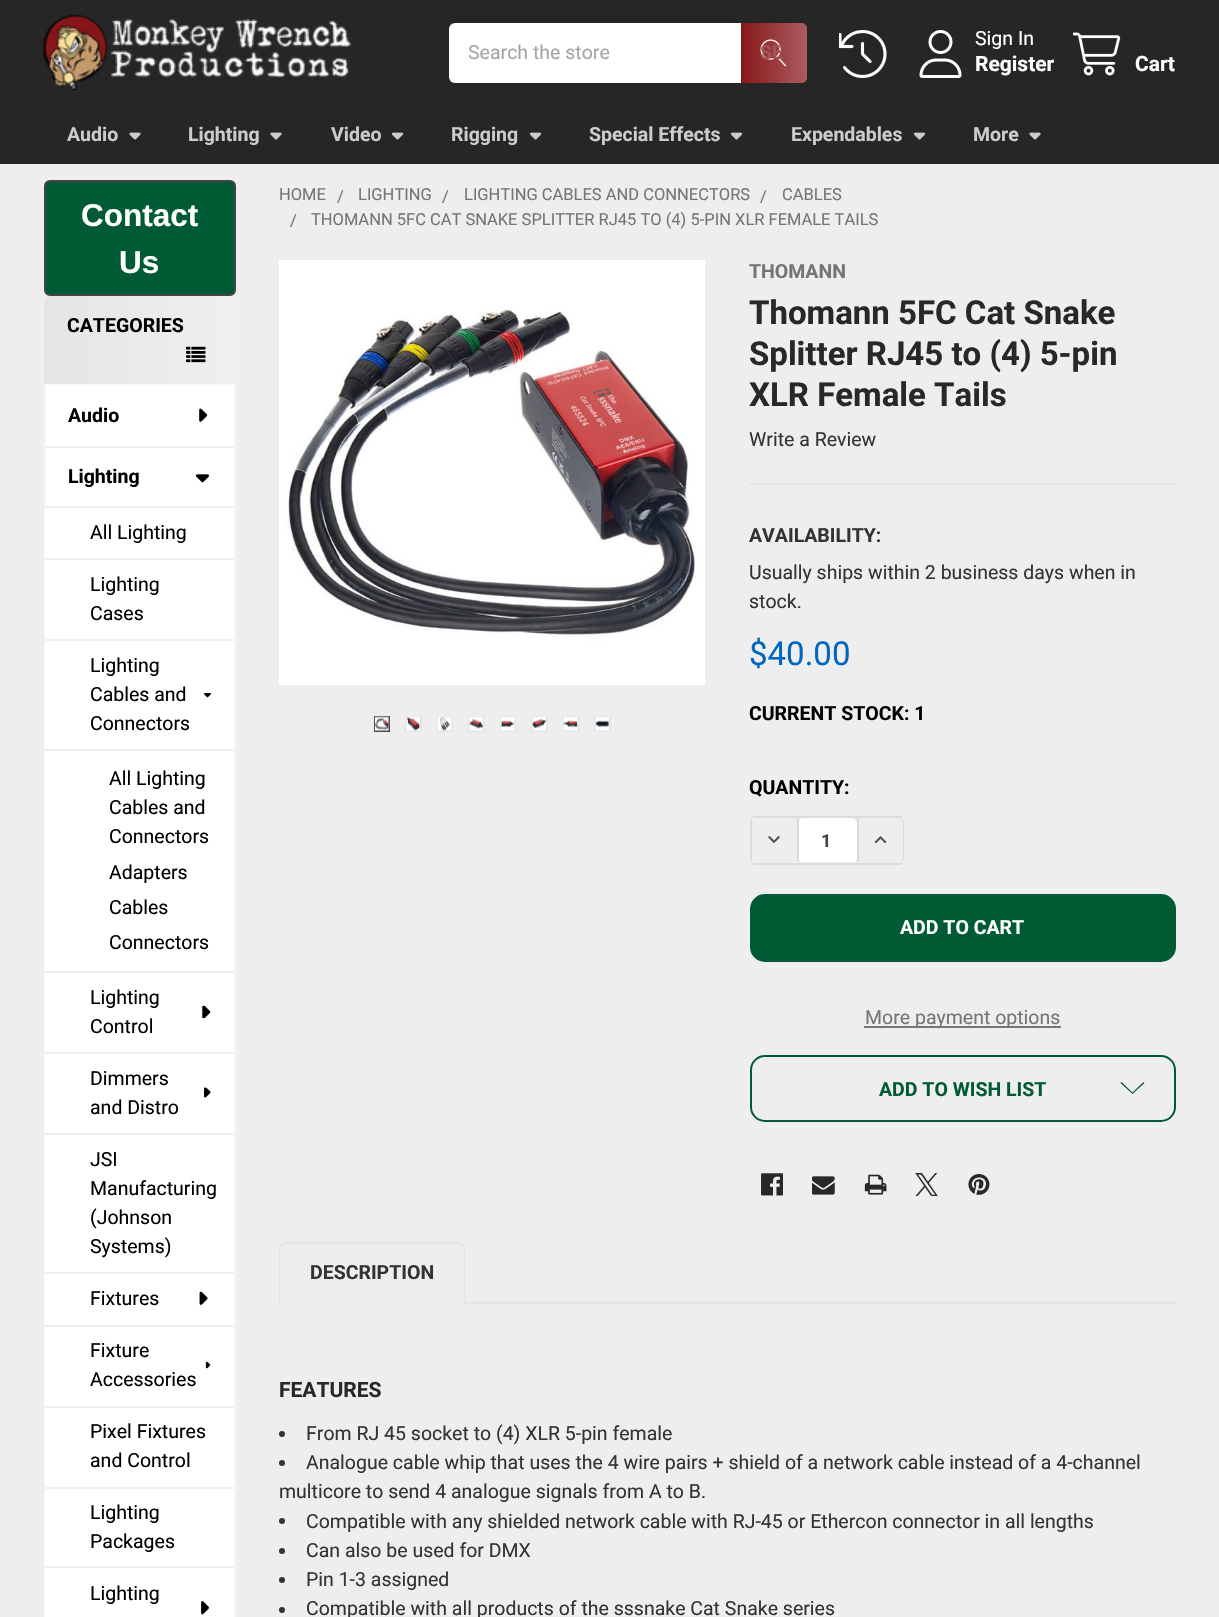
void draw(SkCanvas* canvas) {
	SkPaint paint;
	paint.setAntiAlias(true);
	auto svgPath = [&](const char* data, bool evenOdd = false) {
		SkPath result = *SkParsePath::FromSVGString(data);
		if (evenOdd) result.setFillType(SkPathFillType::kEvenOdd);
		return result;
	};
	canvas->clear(0xffeeeeee);
	paint.setColor(0xff262626);
	canvas->drawRect(SkRect::MakeXYWH(0, 0, 1219, 164), paint);
	canvas->drawImageRect(SkImages::DeferredFromEncodedData(SkData::MakeFromFileName("img1.png")), SkRect::MakeXYWH(43, 14, 309, 76), SkSamplingOptions());
	paint.setColor(0xffffffff);
	canvas->drawRoundRect(SkRect::MakeXYWH(449, 23, 358, 60), 6, 6, paint);
	{
		const SkColor colors[] = {0xff871719, 0xb3871719};
		const float stops[] = {0, 1};
		const SkPoint ends[] = {{741, 53}, {807, 53}};
		paint.setShader(SkGradientShader::MakeLinear(ends, colors, stops, 2, SkTileMode::kClamp));
		paint.setAlpha(255);
	}
	canvas->drawPath(svgPath("M741 23H801C804.5 23 807 25.5 807 29V77C807 80.5 804.5 83 801 83H741Z"), paint);
	canvas->drawImageRect(SkImages::DeferredFromEncodedData(SkData::MakeFromFileName("img2.png")), SkRect::MakeXYWH(760, 39, 27, 28), SkSamplingOptions());
	SkFont f1(fontMgr->matchFamilyStyle("Roboto", SkFontStyle::Normal()), 19.5);
	f1.setSubpixel(true);
	paint.setShader(nullptr);
	paint.setColor(0xffa5a5a5);
	canvas->drawString("Search the store", 468, 59, f1, paint);
	SkFont f2(fontMgr->matchFamilyStyle("Roboto", SkFontStyle::Bold()), 19.5);
	f2.setSubpixel(true);
	paint.setColor(0xffa65355);
	canvas->drawString("SE", 760, 59, f2, paint);
	canvas->drawImageRect(SkImages::DeferredFromEncodedData(SkData::MakeFromFileName("img3.png")), SkRect::MakeXYWH(839, 30, 48, 48), SkSamplingOptions());
	canvas->drawImageRect(SkImages::DeferredFromEncodedData(SkData::MakeFromFileName("img4.png")), SkRect::MakeXYWH(919, 30, 43, 48), SkSamplingOptions());
	paint.setColor(0xffffffff);
	canvas->drawString("Sign In", 975, 45, f1, paint);
	SkFont f3(fontMgr->matchFamilyStyle("Roboto", SkFontStyle::Bold()), 21);
	f3.setSubpixel(true);
	canvas->drawString("Register", 975, 71, f3, paint);
	canvas->drawImageRect(SkImages::DeferredFromEncodedData(SkData::MakeFromFileName("img5.png")), SkRect::MakeXYWH(1073, 32, 48, 44), SkSamplingOptions());
	canvas->drawString("Cart", 1135, 71, f3, paint);
	paint.setColor(0xffcccccc);
	canvas->drawString("Audio", 67, 141, f2, paint);
	canvas->drawImageRect(SkImages::DeferredFromEncodedData(SkData::MakeFromFileName("img6.png")), SkRect::MakeXYWH(129, 132, 12, 8), SkSamplingOptions());
	canvas->drawString("Lighting", 188, 141, f2, paint);
	canvas->drawImageRect(SkImages::DeferredFromEncodedData(SkData::MakeFromFileName("img6.png")), SkRect::MakeXYWH(270, 132, 12, 8), SkSamplingOptions());
	canvas->drawString("Video", 331, 141, f2, paint);
	canvas->drawImageRect(SkImages::DeferredFromEncodedData(SkData::MakeFromFileName("img7.png")), SkRect::MakeXYWH(391, 132, 13, 8), SkSamplingOptions());
	canvas->drawString("Rigging", 451, 141, f2, paint);
	canvas->drawImageRect(SkImages::DeferredFromEncodedData(SkData::MakeFromFileName("img7.png")), SkRect::MakeXYWH(529, 132, 13, 8), SkSamplingOptions());
	canvas->drawString("Special Effects", 589, 141, f2, paint);
	canvas->drawImageRect(SkImages::DeferredFromEncodedData(SkData::MakeFromFileName("img7.png")), SkRect::MakeXYWH(730, 132, 13, 8), SkSamplingOptions());
	canvas->drawString("Expendables", 791, 141, f2, paint);
	canvas->drawImageRect(SkImages::DeferredFromEncodedData(SkData::MakeFromFileName("img7.png")), SkRect::MakeXYWH(913, 132, 13, 8), SkSamplingOptions());
	canvas->drawString("More", 973, 141, f2, paint);
	canvas->drawImageRect(SkImages::DeferredFromEncodedData(SkData::MakeFromFileName("img6.png")), SkRect::MakeXYWH(1029, 132, 12, 8), SkSamplingOptions());
	paint.setColor(0xff005a34);
	canvas->drawRoundRect(SkRect::MakeXYWH(45, 181, 190, 114), 5, 5, paint);
	paint.setStroke(true);
	paint.setStrokeWidth(2);
	paint.setColor(0xff444444);
	canvas->drawRoundRect(SkRect::MakeXYWH(45, 181, 190, 114), 5, 5, paint);
	SkFont f4(fontMgr->matchFamilyStyle("Liberation Sans", SkFontStyle::Bold()), 31.5);
	f4.setSubpixel(true);
	paint.setStroke(false);
	paint.setColor(0xffffffff);
	canvas->drawString("Contact", 81, 226, f4, paint);
	canvas->drawString("Us", 119, 273, f4, paint);
	canvas->drawRoundRect(SkRect::MakeXYWH(44, 296, 192, 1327), 6, 6, paint);
	{
		const SkColor colors[] = {0xffe5e5e5, 0x99e5e5e5};
		const float stops[] = {0, 1};
		const SkPoint ends[] = {{43, 1196}, {236, 1196}};
		paint.setShader(SkGradientShader::MakeLinear(ends, colors, stops, 2, SkTileMode::kClamp));
		paint.setAlpha(255);
	}
	canvas->drawRoundRect(SkRect::MakeXYWH(44, 296, 192, 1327), 6, 6, paint);
	paint.setShader(nullptr);
	paint.setColor(0xff000000);
	canvas->drawString("CATEGORIES", 67, 332, f2, paint);
	canvas->drawImageRect(SkImages::DeferredFromEncodedData(SkData::MakeFromFileName("img8.png")), SkRect::MakeXYWH(186, 346, 20, 17), SkSamplingOptions());
	paint.setColor(0xffffffff);
	canvas->drawRect(SkRect::MakeXYWH(46, 386, 188, 120), paint);
	paint.setStroke(true);
	paint.setColor(0xfff7f7f7);
	canvas->drawRect(SkRect::MakeXYWH(45, 385, 190, 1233), paint);
	paint.setStroke(false);
	paint.setColor(0xff000000);
	canvas->drawString("Audio", 68, 422, f2, paint);
	canvas->drawImageRect(SkImages::DeferredFromEncodedData(SkData::MakeFromFileName("img9.png")), SkRect::MakeXYWH(199, 408, 9, 14), SkSamplingOptions());
	paint.setColor(0xffeeeeee);
	canvas->drawRect(SkRect::MakeXYWH(45, 446, 189, 2), paint);
	paint.setColor(0xff000000);
	canvas->drawString("Lighting", 68, 483, f2, paint);
	canvas->drawImageRect(SkImages::DeferredFromEncodedData(SkData::MakeFromFileName("img10.png")), SkRect::MakeXYWH(195, 474, 15, 9), SkSamplingOptions());
	paint.setColor(0xffffffff);
	canvas->drawRect(SkRect::MakeXYWH(45, 508, 189, 1109), paint);
	paint.setColor(0xffeeeeee);
	canvas->drawRect(SkRect::MakeXYWH(45, 506, 126, 2), paint);
	canvas->drawRect(SkRect::MakeXYWH(45, 558, 189, 2), paint);
	paint.setColor(0xff000000);
	canvas->drawString("All Lighting", 90, 539, f1, paint);
	paint.setColor(0xffeeeeee);
	canvas->drawRect(SkRect::MakeXYWH(45, 639, 189, 2), paint);
	paint.setColor(0xff000000);
	canvas->drawString("Lighting", 90, 591, f1, paint);
	canvas->drawString("Cases", 90, 620, f1, paint);
	paint.setColor(0xffeeeeee);
	canvas->drawRect(SkRect::MakeXYWH(45, 749, 189, 2), paint);
	paint.setColor(0xff000000);
	canvas->drawString("Lighting", 90, 672, f1, paint);
	canvas->drawString("Cables and", 90, 701, f1, paint);
	canvas->drawImageRect(SkImages::DeferredFromEncodedData(SkData::MakeFromFileName("img11.png")), SkRect::MakeXYWH(204, 693, 7, 5), SkSamplingOptions());
	canvas->drawString("Connectors", 90, 730, f1, paint);
	paint.setColor(0xffeeeeee);
	canvas->drawRect(SkRect::MakeXYWH(45, 971, 189, 2), paint);
	paint.setColor(0xff000000);
	canvas->drawString("All Lighting", 109, 785, f1, paint);
	canvas->drawString("Cables and", 109, 814, f1, paint);
	canvas->drawString("Connectors", 109, 843, f1, paint);
	canvas->drawString("Adapters", 109, 879, f1, paint);
	canvas->drawString("Cables", 109, 914, f1, paint);
	canvas->drawString("Connectors", 109, 949, f1, paint);
	paint.setColor(0xffeeeeee);
	canvas->drawRect(SkRect::MakeXYWH(45, 1052, 189, 2), paint);
	paint.setColor(0xff000000);
	canvas->drawString("Lighting", 90, 1004, f1, paint);
	canvas->drawImageRect(SkImages::DeferredFromEncodedData(SkData::MakeFromFileName("img12.png")), SkRect::MakeXYWH(202, 1005, 9, 14), SkSamplingOptions());
	canvas->drawString("Control", 90, 1033, f1, paint);
	paint.setColor(0xffeeeeee);
	canvas->drawRect(SkRect::MakeXYWH(45, 1133, 189, 2), paint);
	paint.setColor(0xff000000);
	canvas->drawString("Dimmers", 90, 1085, f1, paint);
	canvas->drawImageRect(SkImages::DeferredFromEncodedData(SkData::MakeFromFileName("img13.png")), SkRect::MakeXYWH(204, 1087, 7, 11), SkSamplingOptions());
	canvas->drawString("and Distro", 90, 1114, f1, paint);
	paint.setColor(0xffeeeeee);
	canvas->drawRect(SkRect::MakeXYWH(45, 1272, 189, 2), paint);
	paint.setColor(0xff000000);
	canvas->drawString("JSI", 90, 1166, f1, paint);
	canvas->drawString("Manufacturing", 90, 1195, f1, paint);
	canvas->drawString("(Johnson", 90, 1224, f1, paint);
	canvas->drawString("Systems)", 90, 1253, f1, paint);
	paint.setColor(0xffeeeeee);
	canvas->drawRect(SkRect::MakeXYWH(45, 1325, 189, 2), paint);
	paint.setColor(0xff000000);
	canvas->drawString("Fixtures", 90, 1305, f1, paint);
	canvas->drawImageRect(SkImages::DeferredFromEncodedData(SkData::MakeFromFileName("img14.png")), SkRect::MakeXYWH(199, 1291, 9, 14), SkSamplingOptions());
	paint.setColor(0xffeeeeee);
	canvas->drawRect(SkRect::MakeXYWH(45, 1406, 189, 2), paint);
	paint.setColor(0xff000000);
	canvas->drawString("Fixture", 90, 1357, f1, paint);
	canvas->drawImageRect(SkImages::DeferredFromEncodedData(SkData::MakeFromFileName("img15.png")), SkRect::MakeXYWH(205, 1361, 6, 8), SkSamplingOptions());
	canvas->drawString("Accessories", 90, 1386, f1, paint);
	paint.setColor(0xffeeeeee);
	canvas->drawRect(SkRect::MakeXYWH(45, 1487, 189, 2), paint);
	paint.setColor(0xff000000);
	canvas->drawString("Pixel Fixtures", 90, 1438, f1, paint);
	canvas->drawString("and Control", 90, 1467, f1, paint);
	paint.setColor(0xffeeeeee);
	canvas->drawRect(SkRect::MakeXYWH(45, 1566, 189, 2), paint);
	paint.setColor(0xff000000);
	canvas->drawString("Lighting", 90, 1519, f1, paint);
	canvas->drawString("Packages", 90, 1548, f1, paint);
	canvas->drawString("Lighting", 90, 1600, f1, paint);
	canvas->drawImageRect(SkImages::DeferredFromEncodedData(SkData::MakeFromFileName("img16.png")), SkRect::MakeXYWH(201, 1601, 8, 14), SkSamplingOptions());
	SkFont f5(fontMgr->matchFamilyStyle("Roboto", SkFontStyle::Normal()), 16.5);
	f5.setSubpixel(true);
	paint.setColor(0xff757575);
	canvas->drawString("HOME", 279, 200, f5, paint);
	canvas->drawString("/", 337, 202, f5, paint);
	canvas->drawString("LIGHTING", 358, 200, f5, paint);
	canvas->drawString("/", 442, 202, f5, paint);
	canvas->drawString("LIGHTING CABLES AND CONNECTORS", 464, 200, f5, paint);
	canvas->drawString("/", 760, 202, f5, paint);
	canvas->drawString("CABLES", 782, 200, f5, paint);
	canvas->drawString("/", 290, 226, f5, paint);
	canvas->drawString("THOMANN 5FC CAT SNAKE SPLITTER RJ45 TO (4) 5-PIN XLR FEMALE TAILS", 311, 225, f5, paint);
	canvas->drawImageRect(SkImages::DeferredFromEncodedData(SkData::MakeFromFileName("img17.png")), SkRect::MakeXYWH(279, 260, 426, 425), SkSamplingOptions());
	paint.setStroke(true);
	paint.setColor(0xff4c4c4c);
	canvas->drawRect(SkRect::MakeXYWH(375, 717, 14, 14), paint);
	canvas->drawImageRect(SkImages::DeferredFromEncodedData(SkData::MakeFromFileName("img18.png")), SkRect::MakeXYWH(375, 716, 14, 15), SkSamplingOptions());
	paint.setColor(0xffe5e5e5);
	canvas->drawRect(SkRect::MakeXYWH(406, 717, 15, 14), paint);
	canvas->drawImageRect(SkImages::DeferredFromEncodedData(SkData::MakeFromFileName("img19.png")), SkRect::MakeXYWH(406, 716, 14, 15), SkSamplingOptions());
	canvas->drawRect(SkRect::MakeXYWH(438, 717, 14, 14), paint);
	canvas->drawImageRect(SkImages::DeferredFromEncodedData(SkData::MakeFromFileName("img20.png")), SkRect::MakeXYWH(438, 716, 14, 15), SkSamplingOptions());
	canvas->drawRect(SkRect::MakeXYWH(469, 717, 15, 14), paint);
	canvas->drawImageRect(SkImages::DeferredFromEncodedData(SkData::MakeFromFileName("img21.png")), SkRect::MakeXYWH(469, 716, 14, 15), SkSamplingOptions());
	canvas->drawRect(SkRect::MakeXYWH(501, 717, 14, 14), paint);
	canvas->drawImageRect(SkImages::DeferredFromEncodedData(SkData::MakeFromFileName("img22.png")), SkRect::MakeXYWH(501, 716, 14, 15), SkSamplingOptions());
	canvas->drawRect(SkRect::MakeXYWH(532, 717, 15, 14), paint);
	canvas->drawImageRect(SkImages::DeferredFromEncodedData(SkData::MakeFromFileName("img23.png")), SkRect::MakeXYWH(532, 716, 14, 15), SkSamplingOptions());
	canvas->drawRect(SkRect::MakeXYWH(564, 717, 14, 14), paint);
	canvas->drawImageRect(SkImages::DeferredFromEncodedData(SkData::MakeFromFileName("img24.png")), SkRect::MakeXYWH(564, 716, 14, 15), SkSamplingOptions());
	canvas->drawRect(SkRect::MakeXYWH(595, 717, 15, 14), paint);
	canvas->drawImageRect(SkImages::DeferredFromEncodedData(SkData::MakeFromFileName("img25.png")), SkRect::MakeXYWH(595, 716, 14, 15), SkSamplingOptions());
	paint.setStroke(false);
	paint.setColor(0xff757575);
	canvas->drawString("THOMANN", 749, 278, f2, paint);
	SkFont f6(fontMgr->matchFamilyStyle("Roboto", SkFontStyle::Bold()), 33);
	f6.setSubpixel(true);
	paint.setColor(0xff282828);
	canvas->drawString("Thomann 5FC Cat Snake", 749, 324, f6, paint);
	canvas->drawString("Splitter RJ45 to (4) 5-pin", 749, 365, f6, paint);
	canvas->drawString("XLR Female Tails", 749, 406, f6, paint);
	paint.setColor(0xff333333);
	canvas->drawString("Write a Review", 749, 446, f1, paint);
	paint.setColor(0xffe5e5e5);
	canvas->drawRect(SkRect::MakeXYWH(750, 483, 426, 2), paint);
	paint.setColor(0xff333333);
	canvas->drawString("AVAILABILITY:", 749, 542, f2, paint);
	canvas->drawString("Usually ships within 2 business days when in", 749, 579, f1, paint);
	canvas->drawString("stock.", 749, 608, f1, paint);
	SkFont f7(fontMgr->matchFamilyStyle("Roboto", SkFontStyle::Normal()), 33);
	f7.setSubpixel(true);
	paint.setColor(0xff0066c0);
	canvas->drawString("$40.00", 749, 665, f7, paint);
	paint.setColor(0xff000000);
	canvas->drawString("CURRENT STOCK: 1", 749, 720, f2, paint);
	canvas->drawString("QUANTITY:", 749, 794, f2, paint);
	paint.setColor(0xffdcdcdc);
	canvas->drawRect(SkRect::MakeXYWH(753, 816, 149, 2), paint);
	canvas->drawRect(SkRect::MakeXYWH(753, 863, 149, 2), paint);
	paint.setColor(0xffffffff);
	canvas->drawPath(svgPath("M804 818H851C854 818 857 821 857 824V857C857 859 856 862 853 862H802C799 862 798 859 798 857V824C798 821 801 818 804 818Z"), paint);
	paint.setColor(0xffdcdcdc);
	canvas->drawRect(SkRect::MakeXYWH(797, 818, 2, 44), paint);
	canvas->drawPath(svgPath("M750 822V858C750 859 751 861 752 861V819C751 819 750 821 750 822Z"), paint);
	canvas->drawImageRect(SkImages::DeferredFromEncodedData(SkData::MakeFromFileName("img26.png")), SkRect::MakeXYWH(768, 836, 12, 8), SkSamplingOptions());
	SkFont f8(fontMgr->matchFamilyStyle("Roboto", SkFontStyle::Bold()), 18);
	f8.setSubpixel(true);
	paint.setColor(0xff454545);
	canvas->drawString("1", 821, 847, f8, paint);
	paint.setColor(0xffdcdcdc);
	canvas->drawPath(svgPath("M903 819C904 820 904 821 904 822V858C904 859 904 860 903 861Z"), paint);
	canvas->drawRect(SkRect::MakeXYWH(857, 818, 2, 44), paint);
	canvas->drawImageRect(SkImages::DeferredFromEncodedData(SkData::MakeFromFileName("img27.png")), SkRect::MakeXYWH(874, 836, 13, 8), SkSamplingOptions());
	paint.setColor(0xff005a34);
	canvas->drawRoundRect(SkRect::MakeXYWH(751, 895, 424, 66), 14, 14, paint);
	paint.setStroke(true);
	canvas->drawRoundRect(SkRect::MakeXYWH(751, 895, 424, 66), 14, 14, paint);
	paint.setStroke(false);
	paint.setColor(0xffffffff);
	canvas->drawString("ADD TO CART", 900, 934, f2, paint);
	paint.setColor(0xff757575);
	canvas->drawRect(SkRect::MakeXYWH(864, 1026, 197, 2), paint);
	canvas->drawString("More payment options", 865, 1024, f1, paint);
	paint.setStroke(true);
	paint.setColor(0xff005a34);
	canvas->drawRoundRect(SkRect::MakeXYWH(751, 1056, 424, 65), 14, 14, paint);
	paint.setStroke(false);
	canvas->drawString("ADD TO WISH LIST", 879, 1096, f2, paint);
	canvas->drawPath(svgPath("M1132.5 1092.5L1143.5 1082L1144.5 1083L1132.5 1094L1120.5 1083L1121.5 1082Z", true), paint);
	canvas->drawImageRect(SkImages::DeferredFromEncodedData(SkData::MakeFromFileName("img28.png")), SkRect::MakeXYWH(761, 1173, 22, 23), SkSamplingOptions());
	canvas->drawImageRect(SkImages::DeferredFromEncodedData(SkData::MakeFromFileName("img29.png")), SkRect::MakeXYWH(812, 1176, 23, 19), SkSamplingOptions());
	canvas->drawImageRect(SkImages::DeferredFromEncodedData(SkData::MakeFromFileName("img30.png")), SkRect::MakeXYWH(864, 1174, 23, 21), SkSamplingOptions());
	canvas->drawImageRect(SkImages::DeferredFromEncodedData(SkData::MakeFromFileName("img31.png")), SkRect::MakeXYWH(915, 1173, 23, 23), SkSamplingOptions());
	canvas->drawImageRect(SkImages::DeferredFromEncodedData(SkData::MakeFromFileName("img32.png")), SkRect::MakeXYWH(968, 1174, 22, 21), SkSamplingOptions());
	paint.setColor(0xffe5e5e5);
	canvas->drawRect(SkRect::MakeXYWH(279, 1302, 897, 2), paint);
	canvas->drawPath(svgPath("M285 1242C284 1242 282 1243 281 1244L282 1245L285 1244H343H459L462 1245L463 1244C462 1243 460 1242 459 1242Z"), paint);
	canvas->drawPath(svgPath("M465 1304V1248C465 1246 464 1245 463 1244L462 1245L464 1248V1302Z"), paint);
	paint.setColor(0xffeeeeee);
	canvas->drawPath(svgPath("M465 1304H279L280 1302H464Z"), paint);
	paint.setColor(0xffe5e5e5);
	canvas->drawPath(svgPath("M279 1304L280 1302V1248L282 1245L281 1244C280 1245 279 1246 279 1248Z"), paint);
	paint.setColor(0xff333333);
	canvas->drawString("DESCRIPTION", 310, 1279, f2, paint);
	paint.setColor(0xff282828);
	canvas->drawString("FEATURES", 279, 1397, f3, paint);
	paint.setColor(0xff333333);
	canvas->drawCircle(282, 1434, 3, paint);
	canvas->drawString("From RJ 45 socket to (4) XLR 5-pin female", 306, 1440, f1, paint);
	canvas->drawCircle(282, 1463, 3, paint);
	canvas->drawString("Analogue cable whip that uses the 4 wire pairs + shield of a network cable instead of a 4-channel", 306, 1469, f1, paint);
	canvas->drawString("multicore to send 4 analogue signals from A to B.", 279, 1498, f1, paint);
	canvas->drawCircle(282, 1521, 3, paint);
	canvas->drawString("Compatible with any shielded network cable with RJ-45 or Ethercon connector in all lengths", 306, 1528, f1, paint);
	canvas->drawCircle(282, 1551, 3, paint);
	canvas->drawString("Can also be used for DMX", 306, 1557, f1, paint);
	canvas->drawCircle(282, 1580, 3, paint);
	canvas->drawString("Pin 1-3 assigned", 306, 1586, f1, paint);
	canvas->drawCircle(282, 1610, 3, paint);
	canvas->drawString("Compatible with all products of the sssnake Cat Snake series", 306, 1615, f1, paint);
}
